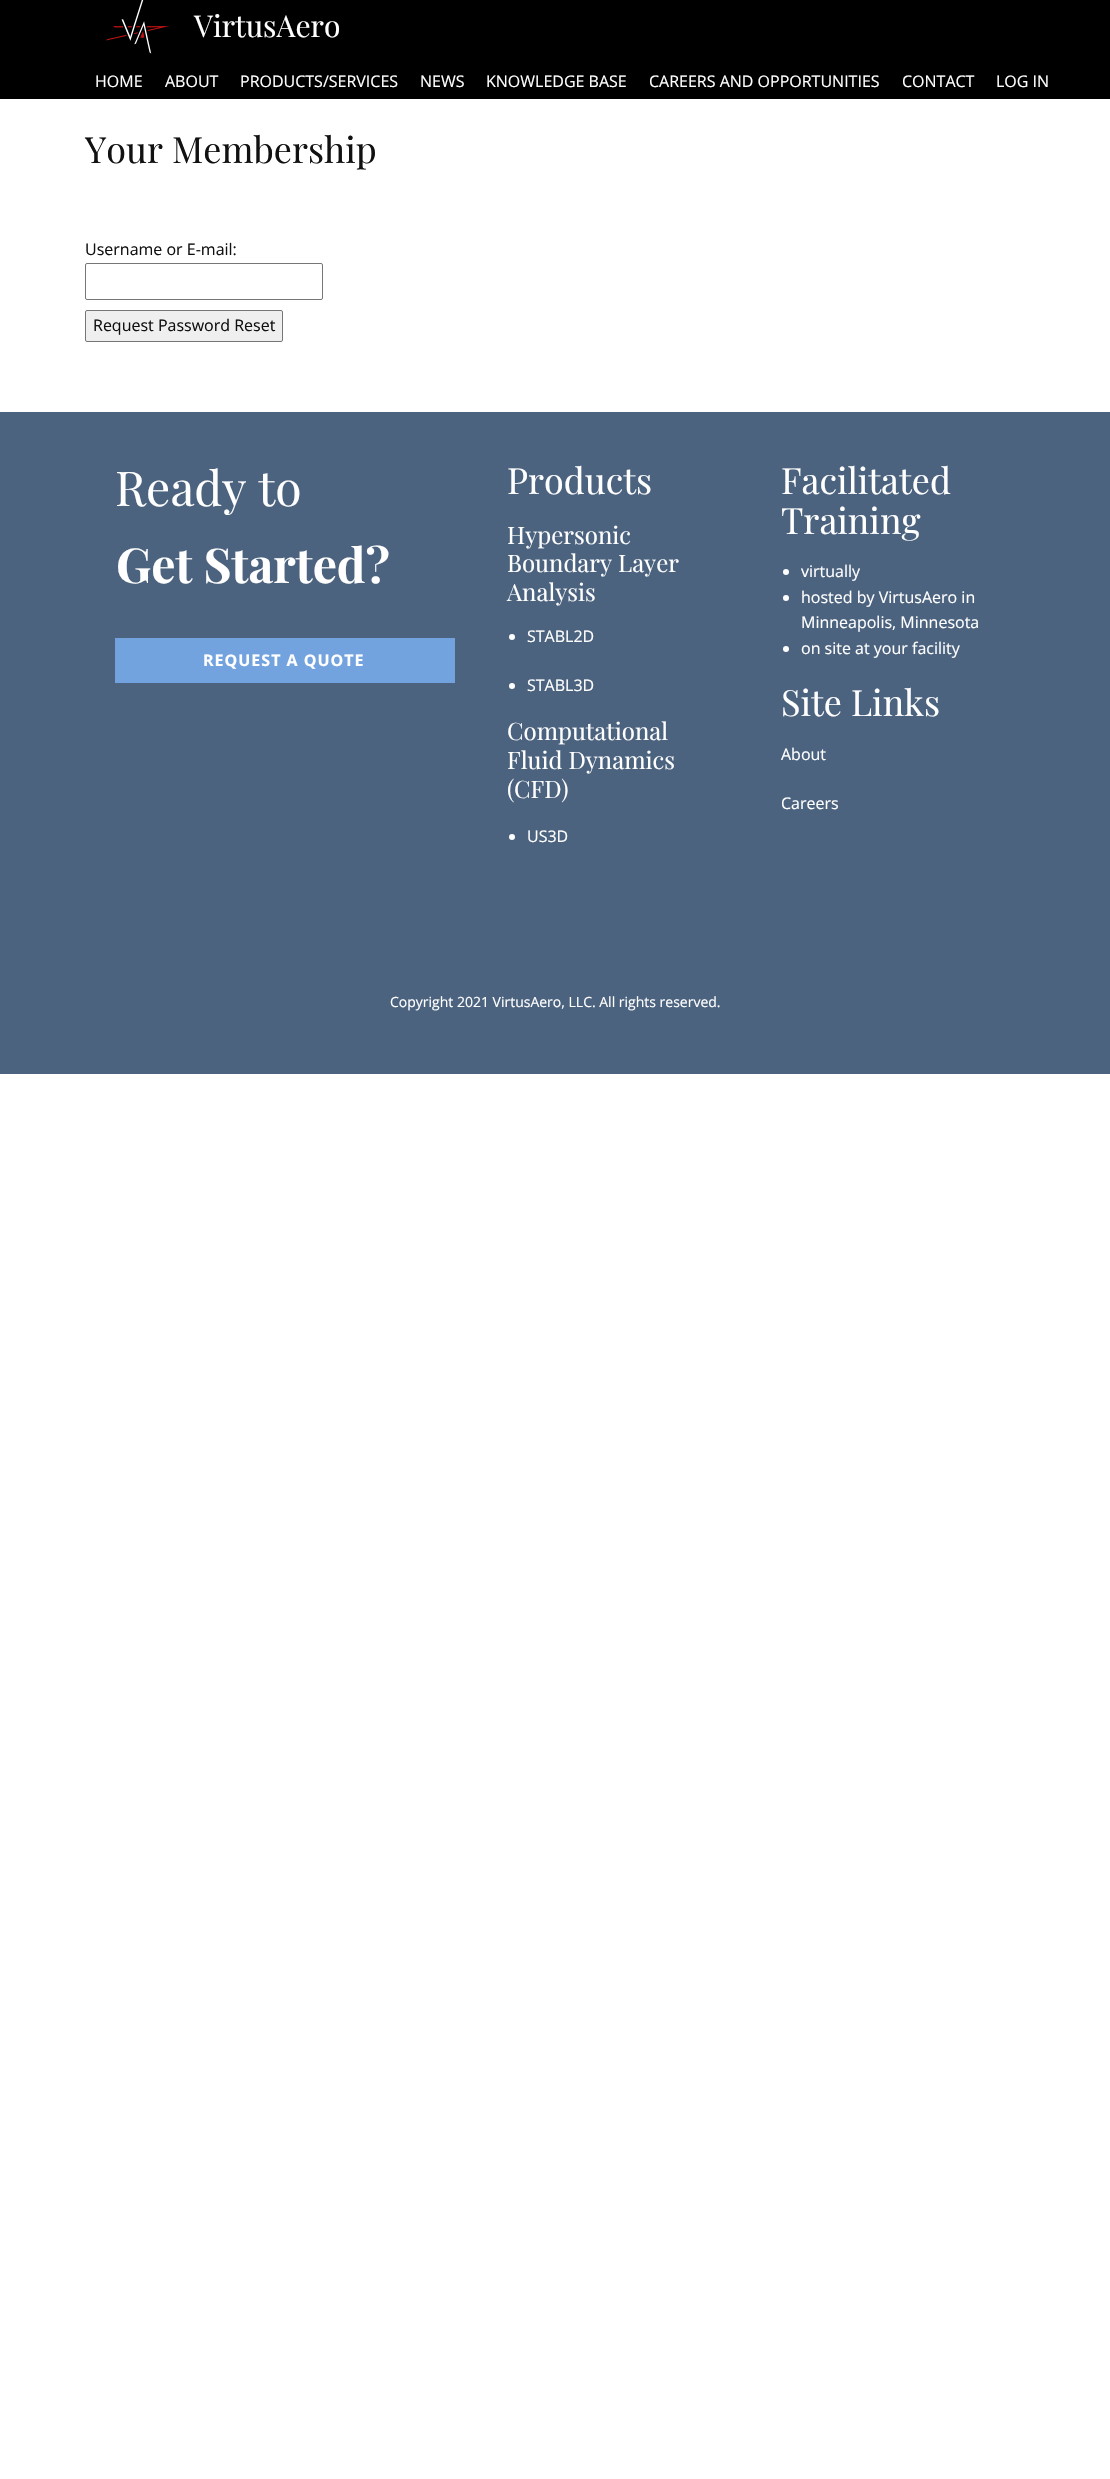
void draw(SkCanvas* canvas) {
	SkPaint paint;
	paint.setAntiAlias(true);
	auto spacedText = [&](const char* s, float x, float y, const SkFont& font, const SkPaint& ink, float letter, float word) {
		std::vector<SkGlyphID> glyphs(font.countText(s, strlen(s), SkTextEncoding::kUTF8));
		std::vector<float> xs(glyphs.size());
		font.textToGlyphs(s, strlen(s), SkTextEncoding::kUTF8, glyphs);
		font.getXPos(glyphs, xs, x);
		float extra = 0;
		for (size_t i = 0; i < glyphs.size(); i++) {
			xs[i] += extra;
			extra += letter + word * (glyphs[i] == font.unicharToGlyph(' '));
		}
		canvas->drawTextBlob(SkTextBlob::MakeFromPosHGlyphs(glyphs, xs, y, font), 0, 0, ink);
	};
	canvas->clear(0xffffffff);
	paint.setColor(0xff000000);
	canvas->drawRect(SkRect::MakeXYWH(0, 0, 1110, 99), paint);
	canvas->drawImageRect(SkImages::DeferredFromEncodedData(SkData::MakeFromFileName("img1.png")), SkRect::MakeXYWH(106, 0, 63, 54), SkSamplingOptions());
	SkFont f1(fontMgr->matchFamilyStyle("Playfair Display", SkFontStyle::Normal()), 30);
	f1.setSubpixel(true);
	paint.setColor(0xffffffff);
	canvas->drawString("VirtusAero", 194, 37, f1, paint);
	SkFont f2(fontMgr->matchFamilyStyle("Open Sans", SkFontStyle::Normal()), 16);
	f2.setSubpixel(true);
	canvas->drawString("HOME", 95, 87, f2, paint);
	canvas->drawString("ABOUT", 165, 87, f2, paint);
	canvas->drawString("PRODUCTS/SERVICES", 240, 87, f2, paint);
	canvas->drawString("NEWS", 420, 87, f2, paint);
	canvas->drawString("KNOWLEDGE BASE", 486, 87, f2, paint);
	canvas->drawString("CAREERS AND OPPORTUNITIES", 649, 87, f2, paint);
	canvas->drawString("CONTACT", 902, 87, f2, paint);
	canvas->drawString("LOG IN", 996, 87, f2, paint);
	SkFont f3(fontMgr->matchFamilyStyle("Playfair Display", SkFontStyle::Normal()), 36);
	f3.setSubpixel(true);
	paint.setColor(0xff111111);
	canvas->drawString("Your Membership", 85, 163, f3, paint);
	canvas->drawString("Username or E-mail:", 85, 255, f2, paint);
	paint.setStroke(true);
	paint.setStrokeWidth(1);
	paint.setColor(0xff767676);
	canvas->drawRoundRect(SkRect::MakeXYWH(85.5, 263.5, 237, 36), 1.5, 1.5, paint);
	paint.setStroke(false);
	paint.setColor(0xffefefef);
	canvas->drawRoundRect(SkRect::MakeXYWH(85.5, 310.5, 197, 31), 1.5, 1.5, paint);
	paint.setStroke(true);
	paint.setColor(0xff767676);
	canvas->drawRoundRect(SkRect::MakeXYWH(85.5, 310.5, 197, 31), 1.5, 1.5, paint);
	paint.setStroke(false);
	paint.setColor(0xff111111);
	canvas->drawString("Request Password Reset", 93, 331, f2, paint);
	paint.setColor(0xff4c637f);
	canvas->drawRect(SkRect::MakeXYWH(0, 412, 1110, 662), paint);
	SkFont f4(fontMgr->matchFamilyStyle("Playfair Display", SkFontStyle::Normal()), 48);
	f4.setSubpixel(true);
	paint.setColor(0xffffffff);
	canvas->drawString("Ready to", 115, 506, f4, paint);
	SkFont f5(fontMgr->matchFamilyStyle("Playfair Display", SkFontStyle::Bold()), 48);
	f5.setSubpixel(true);
	canvas->drawString("Get Started?", 116, 583, f5, paint);
	paint.setColor(0xff73a3de);
	canvas->drawRect(SkRect::MakeXYWH(115, 638, 340, 45), paint);
	SkFont f6(fontMgr->matchFamilyStyle("Open Sans", SkFontStyle::Bold()), 16);
	f6.setSubpixel(true);
	paint.setColor(0xffffffff);
	spacedText("REQUEST A QUOTE", 203, 666, f6, paint, 1, 0);
	canvas->drawString("Products", 507, 494, f3, paint);
	SkFont f7(fontMgr->matchFamilyStyle("Playfair Display", SkFontStyle::Normal()), 24);
	f7.setSubpixel(true);
	canvas->drawString("Hypersonic", 507, 544, f7, paint);
	canvas->drawString("Boundary Layer", 507, 572, f7, paint);
	canvas->drawString("Analysis", 507, 601, f7, paint);
	canvas->drawCircle(512, 637, 3, paint);
	canvas->drawString("STABL2D", 527, 642, f2, paint);
	canvas->drawCircle(512, 686, 3, paint);
	canvas->drawString("STABL3D", 527, 691, f2, paint);
	canvas->drawString("Computational", 507, 740, f7, paint);
	canvas->drawString("Fluid Dynamics", 507, 769, f7, paint);
	canvas->drawString("(CFD)", 507, 798, f7, paint);
	canvas->drawCircle(512, 837, 3, paint);
	canvas->drawString("US3D", 527, 842, f2, paint);
	canvas->drawString("Facilitated", 781, 494, f3, paint);
	canvas->drawString("Training", 781, 534, f3, paint);
	canvas->drawCircle(786, 572, 3, paint);
	canvas->drawString("virtually", 801, 577, f2, paint);
	canvas->drawCircle(786, 598, 3, paint);
	canvas->drawString("hosted by VirtusAero in", 801, 603, f2, paint);
	canvas->drawString("Minneapolis, Minnesota", 801, 628, f2, paint);
	canvas->drawCircle(786, 649, 3, paint);
	canvas->drawString("on site at your facility", 801, 654, f2, paint);
	canvas->drawString("Site Links", 781, 716, f3, paint);
	canvas->drawString("About", 781, 760, f2, paint);
	canvas->drawString("Careers", 781, 809, f2, paint);
	SkFont f8(fontMgr->matchFamilyStyle("Open Sans", SkFontStyle::Normal()), 14);
	f8.setSubpixel(true);
	canvas->drawString("Copyright 2021 VirtusAero, LLC. All rights reserved.", 390, 1007, f8, paint);
}
